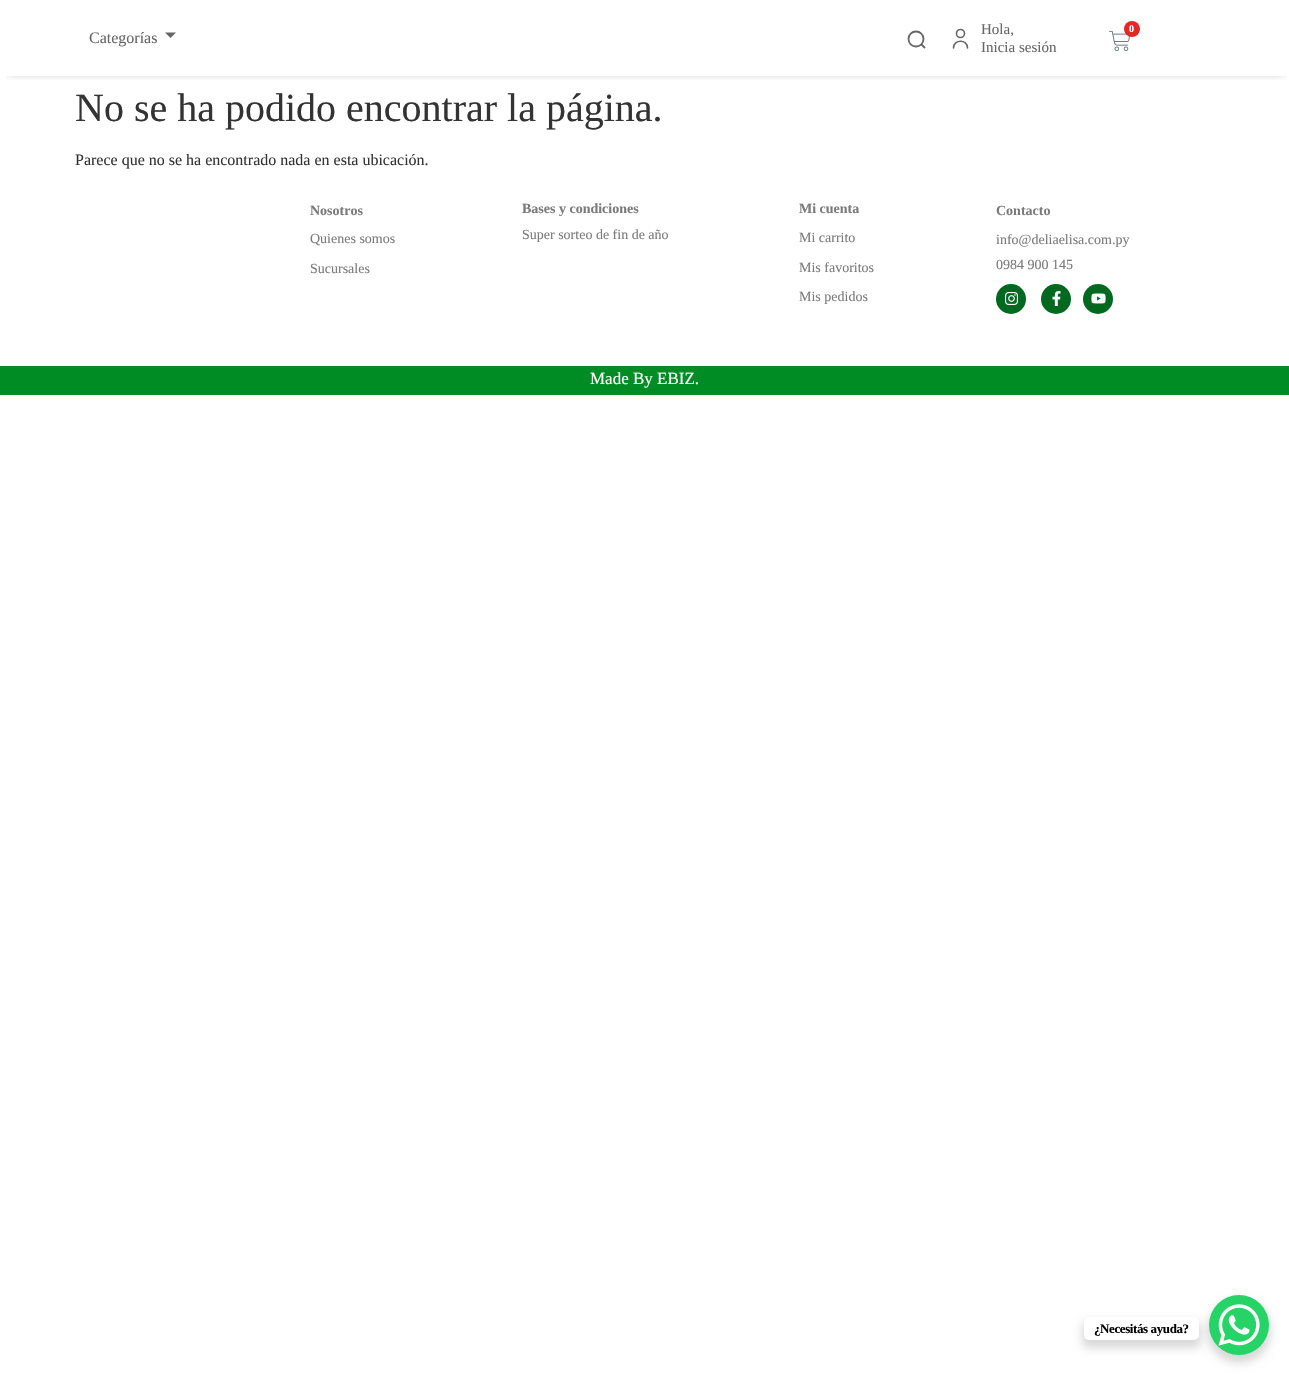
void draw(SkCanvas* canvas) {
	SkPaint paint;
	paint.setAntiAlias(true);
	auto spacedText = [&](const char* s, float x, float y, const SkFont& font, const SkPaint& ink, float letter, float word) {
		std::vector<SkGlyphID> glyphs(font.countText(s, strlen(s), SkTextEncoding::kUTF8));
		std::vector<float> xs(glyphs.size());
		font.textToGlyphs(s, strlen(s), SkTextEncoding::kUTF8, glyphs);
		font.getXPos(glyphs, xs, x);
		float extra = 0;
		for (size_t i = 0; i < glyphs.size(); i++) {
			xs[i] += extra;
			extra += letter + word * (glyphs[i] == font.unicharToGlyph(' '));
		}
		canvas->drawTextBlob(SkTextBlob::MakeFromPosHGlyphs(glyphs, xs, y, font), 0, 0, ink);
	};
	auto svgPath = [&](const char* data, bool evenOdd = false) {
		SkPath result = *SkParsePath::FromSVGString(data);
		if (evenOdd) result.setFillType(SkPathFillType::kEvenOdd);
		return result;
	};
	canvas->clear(0xffffffff);
	canvas->save();
	canvas->clipRect(SkRect::MakeXYWH(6, 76, 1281, 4));
	paint.setColor(0x80000000);
	paint.setMaskFilter(SkMaskFilter::MakeBlur(kNormal_SkBlurStyle, 5));
	canvas->drawRect(SkRect::MakeXYWH(9, 9, 1275, 62), paint);
	paint.setMaskFilter(nullptr);
	canvas->restore();
	SkFont f1(fontMgr->matchFamilyStyle("Liberation Serif", SkFontStyle::Normal()), 16);
	f1.setSubpixel(true);
	paint.setColor(0xff666666);
	canvas->drawString("Categorías", 89, 43, f1, paint);
	canvas->drawPath(svgPath("M165 32.5H176L170.5 38Z"), paint);
	paint.setStroke(true);
	paint.setStrokeWidth(1.6);
	canvas->drawCircle(960.5, 33.5, 4, paint);
	paint.setStrokeCap(SkPaint::kRound_Cap);
	paint.setStrokeJoin(SkPaint::kRound_Join);
	canvas->drawPath(svgPath("M953.5 48C953.5 39 967.5 39 967.5 48"), paint);
	SkFont f2(fontMgr->matchFamilyStyle("Liberation Serif", SkFontStyle::Normal()), 15);
	f2.setSubpixel(true);
	paint.setStroke(false);
	canvas->drawString("Hola,", 981, 34, f2, paint);
	canvas->drawString("Inicia sesión", 981, 52, f2, paint);
	canvas->drawImageRect(SkImages::DeferredFromEncodedData(SkData::MakeFromFileName("img1.png")), SkRect::MakeXYWH(1109, 30, 21, 22), SkSamplingOptions());
	paint.setColor(0xffe42626);
	canvas->drawCircle(1132, 29, 8, paint);
	SkFont f3(fontMgr->matchFamilyStyle("Liberation Serif", SkFontStyle::Bold()), 10);
	f3.setSubpixel(true);
	paint.setColor(0xffffffff);
	canvas->drawString("0", 1129, 32, f3, paint);
	paint.setStroke(true);
	paint.setStrokeWidth(1.8);
	paint.setStrokeCap(SkPaint::kButt_Cap);
	paint.setStrokeJoin(SkPaint::kMiter_Join);
	paint.setColor(0xff666666);
	canvas->drawCircle(916, 39, 7.5, paint);
	canvas->drawPath(svgPath("M925 48L921.5 44.5"), paint);
	SkFont f4(fontMgr->matchFamilyStyle("Liberation Serif", SkFontStyle::Normal()), 40);
	f4.setSubpixel(true);
	paint.setStroke(false);
	paint.setColor(0xff333333);
	canvas->drawString("No se ha podido encontrar la página.", 75, 121, f4, paint);
	canvas->drawString("Parece que no se ha encontrado nada en esta ubicación.", 75, 165, f1, paint);
	SkFont f5(fontMgr->matchFamilyStyle("Liberation Serif", SkFontStyle::Bold()), 14);
	f5.setSubpixel(true);
	paint.setColor(0xff7a7a7a);
	canvas->drawString("Nosotros", 310, 215, f5, paint);
	SkFont f6(fontMgr->matchFamilyStyle("Liberation Serif", SkFontStyle::Normal()), 14);
	f6.setSubpixel(true);
	canvas->drawString("Quienes somos", 310, 243, f6, paint);
	canvas->drawString("Sucursales", 310, 273, f6, paint);
	canvas->drawString("Bases y condiciones", 522, 213, f5, paint);
	canvas->drawString("Super sorteo de fin de año", 522, 239, f6, paint);
	canvas->drawString("Mi cuenta", 799, 213, f5, paint);
	canvas->drawString("Mi carrito", 799, 242, f6, paint);
	canvas->drawString("Mis favoritos", 799, 272, f6, paint);
	canvas->drawString("Mis pedidos", 799, 301, f6, paint);
	canvas->drawString("Contacto", 996, 215, f5, paint);
	canvas->drawString("info@deliaelisa.com.py", 996, 244, f6, paint);
	canvas->drawString("0984 900 145", 996, 269, f6, paint);
	paint.setColor(0xff00681f);
	canvas->drawCircle(1011, 299, 15, paint);
	canvas->drawImageRect(SkImages::DeferredFromEncodedData(SkData::MakeFromFileName("img2.png")), SkRect::MakeXYWH(1005, 292, 14, 13), SkSamplingOptions());
	canvas->drawCircle(1056, 299, 15, paint);
	canvas->drawImageRect(SkImages::DeferredFromEncodedData(SkData::MakeFromFileName("img3.png")), SkRect::MakeXYWH(1052, 291, 9, 15), SkSamplingOptions());
	canvas->drawCircle(1098, 299, 15, paint);
	canvas->drawImageRect(SkImages::DeferredFromEncodedData(SkData::MakeFromFileName("img4.png")), SkRect::MakeXYWH(1091, 293, 15, 11), SkSamplingOptions());
	paint.setColor(0xff008c24);
	canvas->drawRect(SkRect::MakeXYWH(0, 366, 1289, 29), paint);
	SkFont f7(fontMgr->matchFamilyStyle("Liberation Serif", SkFontStyle::Normal()), 17);
	f7.setSubpixel(true);
	paint.setColor(0xffffffff);
	canvas->drawString("Made By EBIZ.", 590, 384, f7, paint);
	paint.setColor(0x26000000);
	paint.setMaskFilter(SkMaskFilter::MakeBlur(kNormal_SkBlurStyle, 4));
	canvas->drawRoundRect(SkRect::MakeXYWH(1207, 1299, 64, 64), 32, 32, paint);
	paint.setMaskFilter(nullptr);
	paint.setColor(0xff25d366);
	canvas->drawCircle(1239, 1325, 30, paint);
	paint.setColor(0x26000000);
	paint.setMaskFilter(SkMaskFilter::MakeBlur(kNormal_SkBlurStyle, 4));
	canvas->drawRoundRect(SkRect::MakeXYWH(1082, 1321, 119, 27), 7, 7, paint);
	paint.setMaskFilter(nullptr);
	paint.setColor(0xffffffff);
	canvas->drawRoundRect(SkRect::MakeXYWH(1084, 1317, 115, 23), 5, 5, paint);
	SkFont f8(fontMgr->matchFamilyStyle("Liberation Serif", SkFontStyle::Bold()), 13);
	f8.setSubpixel(true);
	paint.setColor(0xff000000);
	spacedText("¿Necesitás ayuda?", 1094, 1333, f8, paint, -0.4, 0);
	canvas->drawImageRect(SkImages::DeferredFromEncodedData(SkData::MakeFromFileName("img5.png")), SkRect::MakeXYWH(1218, 1304, 42, 42), SkSamplingOptions());
}
